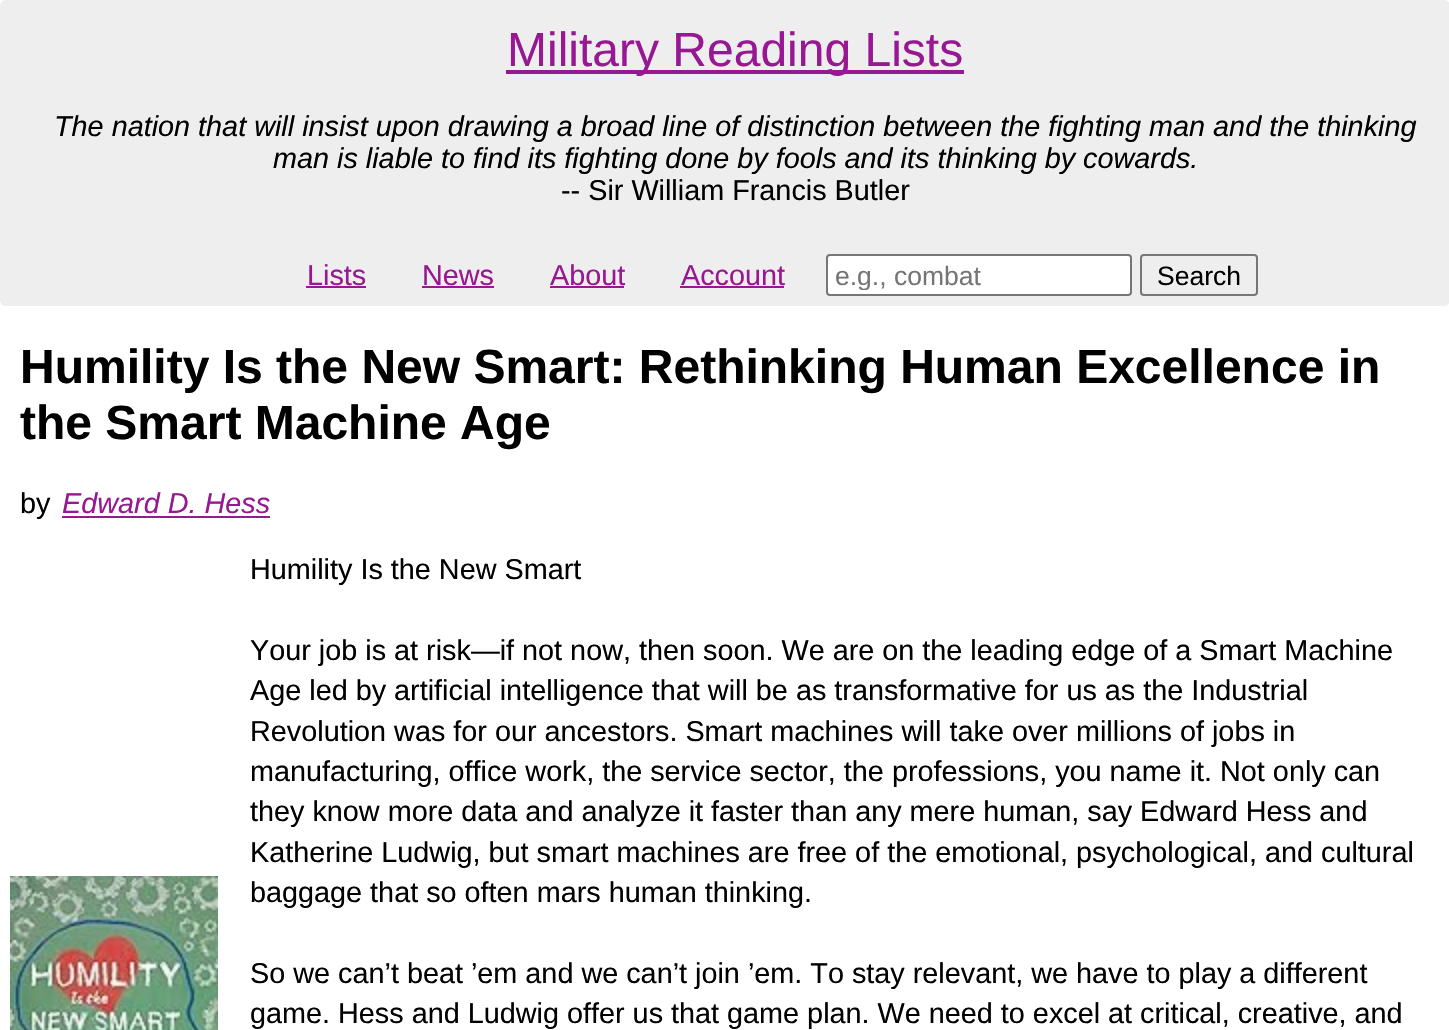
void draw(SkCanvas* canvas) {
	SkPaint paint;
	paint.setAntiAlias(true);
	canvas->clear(0xffffffff);
	paint.setColor(0xffeeeeee);
	canvas->drawRoundRect(SkRect::MakeXYWH(0, 0, 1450, 306), 6, 6, paint);
	paint.setColor(0xff981793);
	canvas->drawRect(SkRect::MakeXYWH(506, 70, 458, 4), paint);
	SkFont f1(fontMgr->matchFamilyStyle("Liberation Sans", SkFontStyle::Normal()), 48);
	f1.setSubpixel(true);
	canvas->drawString("Military Reading Lists", 507, 66, f1, paint);
	SkFont f2(fontMgr->matchFamilyStyle("Liberation Sans", SkFontStyle::Italic()), 28.8);
	f2.setSubpixel(true);
	paint.setColor(0xff000000);
	canvas->drawString("The nation that will insist upon drawing a broad line of distinction between the fighting man and the thinking", 54, 136, f2, paint);
	canvas->drawString("man is liable to find its fighting done by fools and its thinking by cowards.", 273, 168, f2, paint);
	SkFont f3(fontMgr->matchFamilyStyle("Liberation Sans", SkFontStyle::Normal()), 28.8);
	f3.setSubpixel(true);
	canvas->drawString("-- Sir William Francis Butler", 561, 200, f3, paint);
	paint.setColor(0xff981793);
	canvas->drawString("Lists", 307, 285, f3, paint);
	canvas->drawRect(SkRect::MakeXYWH(306, 286, 60, 2), paint);
	canvas->drawString("News", 422, 285, f3, paint);
	canvas->drawRect(SkRect::MakeXYWH(422, 286, 72, 2), paint);
	canvas->drawString("About", 550, 285, f3, paint);
	canvas->drawRect(SkRect::MakeXYWH(550, 286, 74, 2), paint);
	canvas->drawString("Account", 681, 285, f3, paint);
	canvas->drawRect(SkRect::MakeXYWH(680, 286, 104, 2), paint);
	paint.setColor(0xffffffff);
	canvas->drawRoundRect(SkRect::MakeXYWH(827, 255, 304, 40), 3, 3, paint);
	paint.setStroke(true);
	paint.setStrokeWidth(2);
	paint.setColor(0xff767676);
	canvas->drawRoundRect(SkRect::MakeXYWH(827, 255, 304, 40), 3, 3, paint);
	canvas->save();
	canvas->clipRect(SkRect::MakeXYWH(834, 260, 264, 30));
	SkFont f4(fontMgr->matchFamilyStyle("Liberation Sans", SkFontStyle::Normal()), 26.5);
	f4.setSubpixel(true);
	paint.setStroke(false);
	paint.setColor(0xff757575);
	canvas->drawString("e.g., combat", 835, 285, f4, paint);
	canvas->restore();
	paint.setStroke(true);
	paint.setColor(0xff767676);
	canvas->drawRoundRect(SkRect::MakeXYWH(1141, 255, 116, 40), 3, 3, paint);
	paint.setStroke(false);
	paint.setColor(0xff000000);
	canvas->drawString("Search", 1157, 285, f4, paint);
	SkFont f5(fontMgr->matchFamilyStyle("Liberation Sans", SkFontStyle::Bold()), 48);
	f5.setSubpixel(true);
	canvas->drawString("Humility Is the New Smart: Rethinking Human Excellence in", 20, 383, f5, paint);
	canvas->drawString("the Smart Machine Age", 20, 439, f5, paint);
	canvas->drawString("by", 20, 513, f3, paint);
	paint.setColor(0xff981793);
	canvas->drawString("Edward D. Hess", 62, 513, f2, paint);
	canvas->drawRect(SkRect::MakeXYWH(62, 516, 208, 2), paint);
	canvas->drawImageRect(SkImages::DeferredFromEncodedData(SkData::MakeFromFileName("img1.png")), SkRect::MakeXYWH(10, 876, 208, 154), SkSamplingOptions());
	paint.setColor(0xff000000);
	canvas->drawString("Humility Is the New Smart", 250, 579, f3, paint);
	canvas->drawString("Your job is at risk—if not now, then soon. We are on the leading edge of a Smart Machine", 250, 660, f3, paint);
	canvas->drawString("Age led by artificial intelligence that will be as transformative for us as the Industrial", 250, 700, f3, paint);
	canvas->drawString("Revolution was for our ancestors. Smart machines will take over millions of jobs in", 250, 741, f3, paint);
	canvas->drawString("manufacturing, office work, the service sector, the professions, you name it. Not only can", 250, 781, f3, paint);
	canvas->drawString("they know more data and analyze it faster than any mere human, say Edward Hess and", 250, 821, f3, paint);
	canvas->drawString("Katherine Ludwig, but smart machines are free of the emotional, psychological, and cultural", 250, 862, f3, paint);
	canvas->drawString("baggage that so often mars human thinking.", 250, 902, f3, paint);
	canvas->drawString("So we can’t beat ’em and we can’t join ’em. To stay relevant, we have to play a different", 250, 983, f3, paint);
	canvas->drawString("game. Hess and Ludwig offer us that game plan. We need to excel at critical, creative, and", 250, 1023, f3, paint);
}
